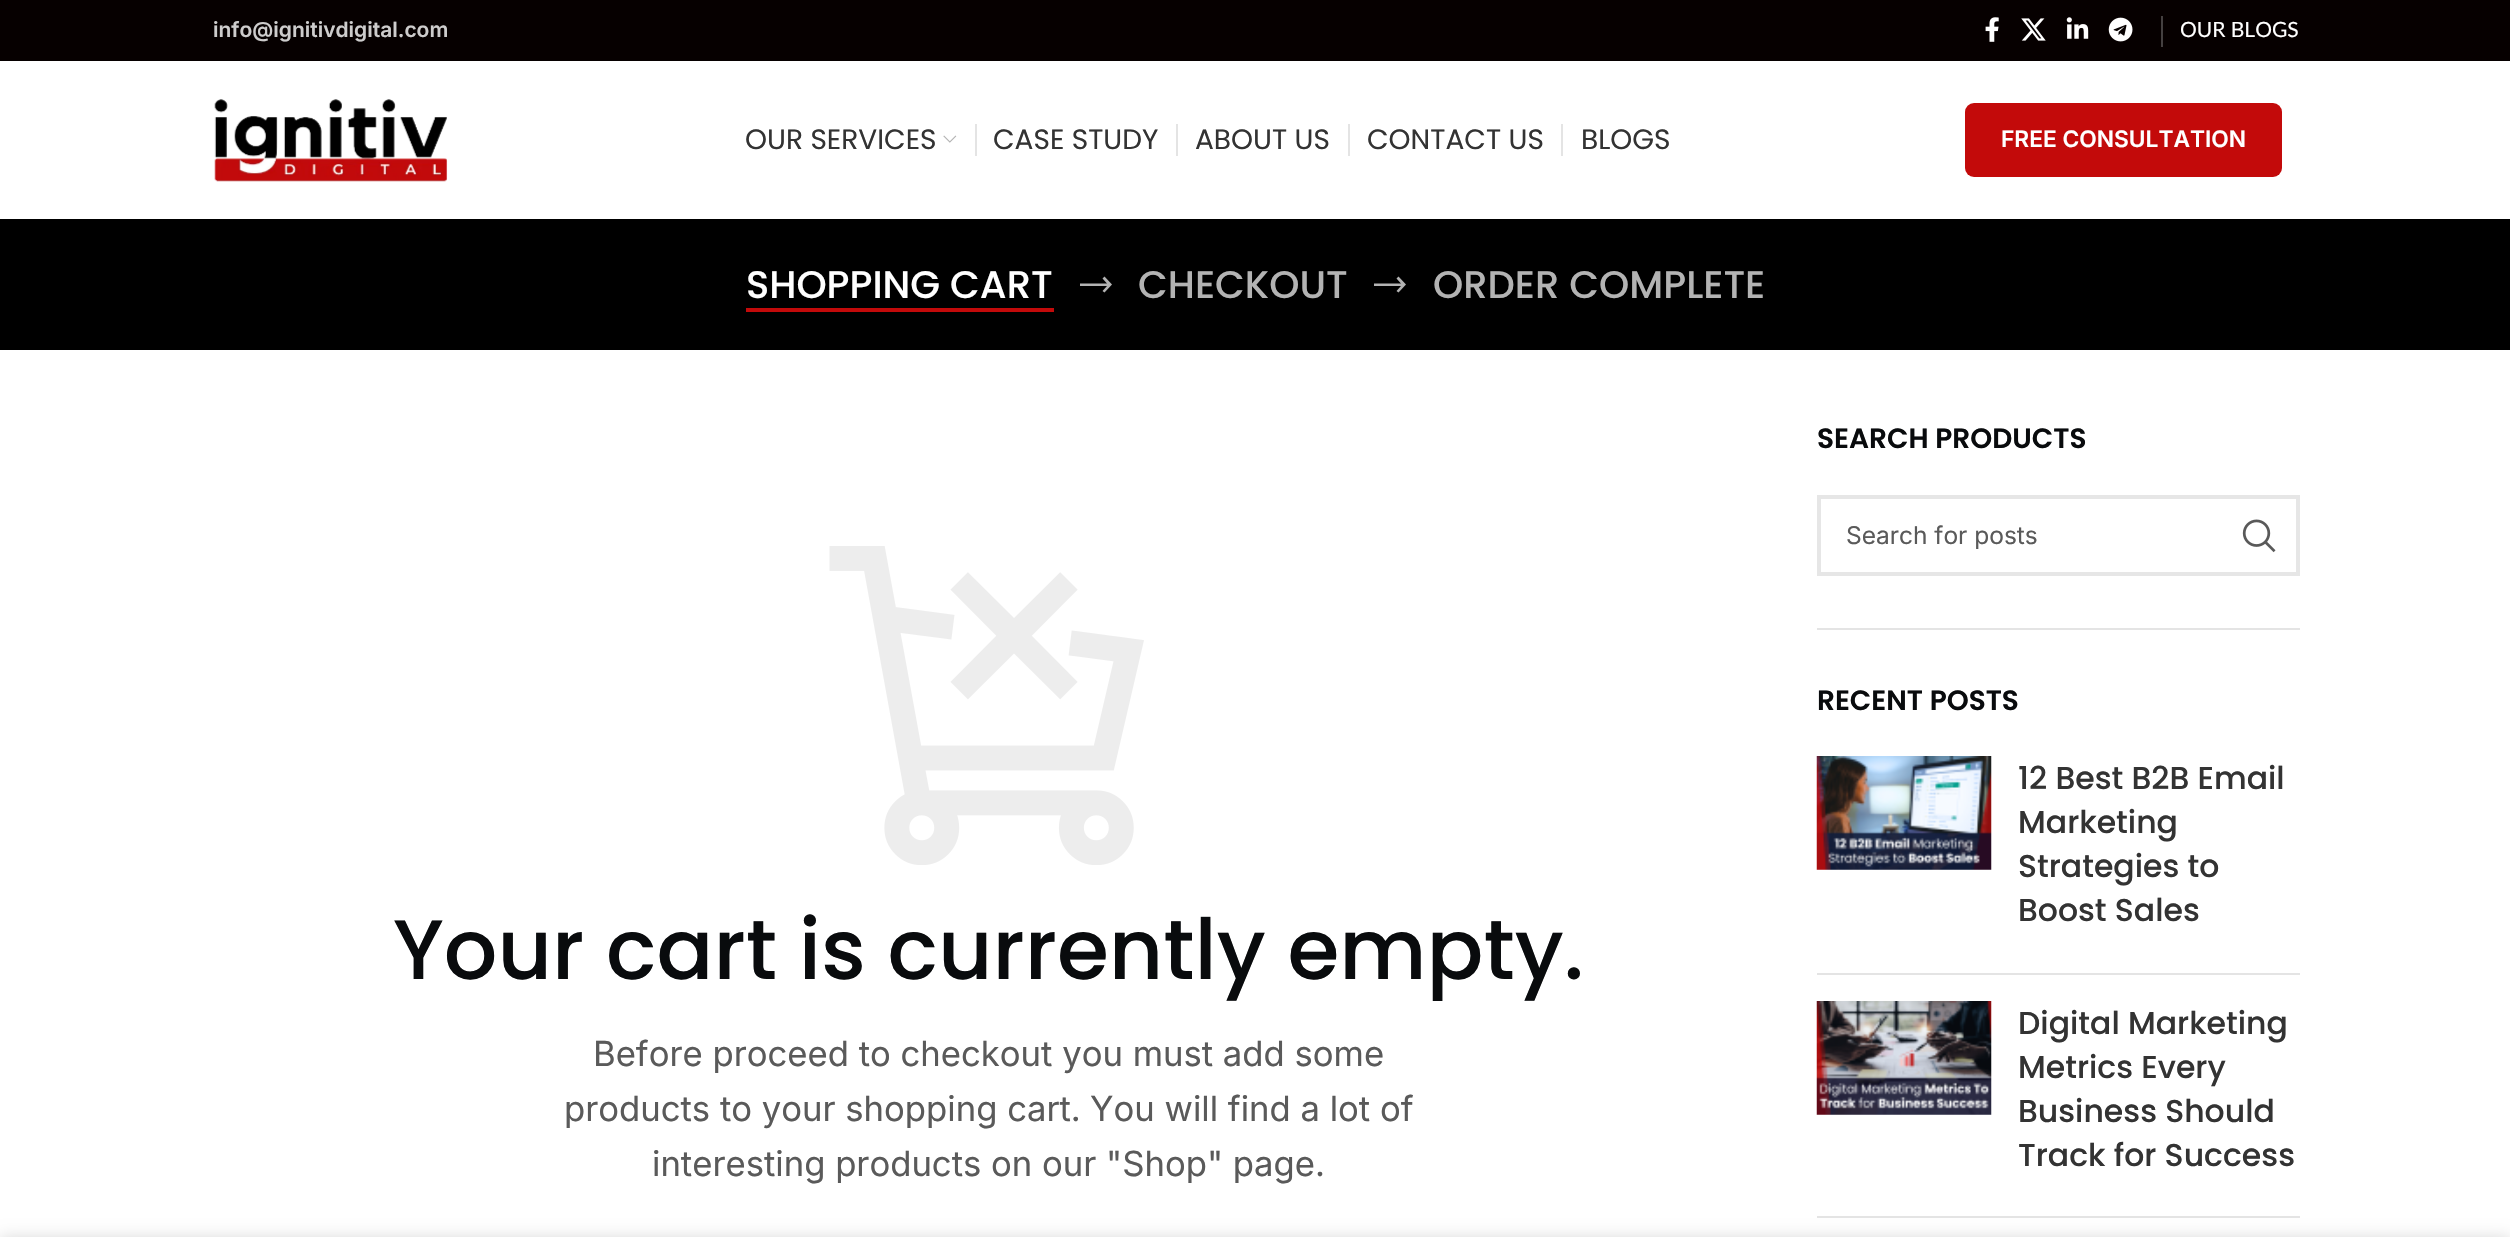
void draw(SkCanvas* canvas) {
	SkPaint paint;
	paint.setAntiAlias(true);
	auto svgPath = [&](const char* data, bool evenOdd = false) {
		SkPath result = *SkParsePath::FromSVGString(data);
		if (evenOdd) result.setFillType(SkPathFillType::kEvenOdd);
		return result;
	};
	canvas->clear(0xffffffff);
	paint.setColor(0xff060000);
	canvas->drawRect(SkRect::MakeXYWH(0, 0, 2510, 61), paint);
	SkFont f1(fontMgr->matchFamilyStyle("Inter", SkFontStyle(600, SkFontStyle::kNormal_Width, SkFontStyle::kUpright_Slant)), 21);
	f1.setSubpixel(true);
	paint.setColor(0xffcdcccc);
	canvas->drawString("info@ignitivdigital.com", 213, 37, f1, paint);
	canvas->drawImageRect(SkImages::DeferredFromEncodedData(SkData::MakeFromFileName("img1.png")), SkRect::MakeXYWH(1985, 17, 14, 25), SkSamplingOptions());
	canvas->drawImageRect(SkImages::DeferredFromEncodedData(SkData::MakeFromFileName("img2.png")), SkRect::MakeXYWH(2021, 18, 25, 23), SkSamplingOptions());
	canvas->drawImageRect(SkImages::DeferredFromEncodedData(SkData::MakeFromFileName("img3.png")), SkRect::MakeXYWH(2066, 17, 23, 22), SkSamplingOptions());
	canvas->drawImageRect(SkImages::DeferredFromEncodedData(SkData::MakeFromFileName("img4.png")), SkRect::MakeXYWH(2108, 17, 25, 25), SkSamplingOptions());
	paint.setColor(0xff444040);
	canvas->drawRect(SkRect::MakeXYWH(2161, 16, 2, 31), paint);
	SkFont f2(fontMgr->matchFamilyStyle("Lato", SkFontStyle::Normal()), 21);
	f2.setSubpixel(true);
	paint.setColor(0xffffffff);
	canvas->drawString("OUR BLOGS", 2180, 37, f2, paint);
	canvas->drawImageRect(SkImages::DeferredFromEncodedData(SkData::MakeFromFileName("img5.png")), SkRect::MakeXYWH(214, 99, 234, 83), SkSamplingOptions());
	SkFont f3(fontMgr->matchFamilyStyle("Poppins", SkFontStyle::Normal()), 28);
	f3.setSubpixel(true);
	paint.setColor(0xff333333);
	canvas->drawString("OUR SERVICES", 745, 149, f3, paint);
	canvas->drawImageRect(SkImages::DeferredFromEncodedData(SkData::MakeFromFileName("img6.png")), SkRect::MakeXYWH(943, 135, 14, 8), SkSamplingOptions());
	paint.setColor(0xffe4e4e4);
	canvas->drawRect(SkRect::MakeXYWH(975, 124, 2, 32), paint);
	paint.setColor(0xff333333);
	canvas->drawString("CASE STUDY", 993, 149, f3, paint);
	paint.setColor(0xffe4e4e4);
	canvas->drawRect(SkRect::MakeXYWH(1176, 124, 2, 32), paint);
	paint.setColor(0xff333333);
	canvas->drawString("ABOUT US", 1195, 149, f3, paint);
	paint.setColor(0xffe4e4e4);
	canvas->drawRect(SkRect::MakeXYWH(1348, 124, 2, 32), paint);
	paint.setColor(0xff333333);
	canvas->drawString("CONTACT US", 1367, 149, f3, paint);
	paint.setColor(0xffe4e4e4);
	canvas->drawRect(SkRect::MakeXYWH(1561, 124, 2, 32), paint);
	paint.setColor(0xff333333);
	canvas->drawString("BLOGS", 1581, 149, f3, paint);
	paint.setColor(0xffc30a0a);
	canvas->drawRoundRect(SkRect::MakeXYWH(1965, 103, 317, 74), 9, 9, paint);
	SkFont f4(fontMgr->matchFamilyStyle("Inter", SkFontStyle(600, SkFontStyle::kNormal_Width, SkFontStyle::kUpright_Slant)), 22.75);
	f4.setSubpixel(true);
	paint.setColor(0xffffffff);
	canvas->drawString("FREE CONSULTATION", 2001, 147, f4, paint);
	paint.setColor(0xff000000);
	canvas->drawRect(SkRect::MakeXYWH(0, 219, 2510, 131), paint);
	SkFont f5(fontMgr->matchFamilyStyle("Poppins", SkFontStyle(500, SkFontStyle::kNormal_Width, SkFontStyle::kUpright_Slant)), 38.5);
	f5.setSubpixel(true);
	paint.setColor(0xffffffff);
	canvas->drawString("SHOPPING CART", 746, 298, f5, paint);
	paint.setColor(0xffc30a0a);
	canvas->drawRect(SkRect::MakeXYWH(746, 308, 308, 4), paint);
	paint.setColor(0xffb3b3b3);
	canvas->drawPath(svgPath("M1112 284.5L1104.5 276.5L1102.5 278.5L1107 283.5H1080V286H1107L1102.5 291L1104.5 292.5Z"), paint);
	canvas->drawString("CHECKOUT", 1138, 298, f5, paint);
	canvas->drawPath(svgPath("M1406 284.5L1398.5 276.5L1396.5 278.5L1401 283.5H1374V286H1401L1396.5 291L1398.5 292.5Z"), paint);
	canvas->drawString("ORDER COMPLETE", 1433, 298, f5, paint);
	canvas->drawImageRect(SkImages::DeferredFromEncodedData(SkData::MakeFromFileName("img7.png")), SkRect::MakeXYWH(829, 546, 315, 319), SkSamplingOptions());
	SkFont f6(fontMgr->matchFamilyStyle("Poppins", SkFontStyle(500, SkFontStyle::kNormal_Width, SkFontStyle::kUpright_Slant)), 84);
	f6.setSubpixel(true);
	paint.setColor(0xff090b0d);
	canvas->drawString("Your cart is currently empty.", 393, 979, f6, paint);
	SkFont f7(fontMgr->matchFamilyStyle("Inter", SkFontStyle::Normal()), 34.65);
	f7.setSubpixel(true);
	paint.setColor(0xff5a5a5a);
	canvas->drawString("Before proceed to checkout you must add some", 593, 1066, f7, paint);
	canvas->drawString("products to your shopping cart.", 564, 1121, f7, paint);
	canvas->drawString("You will find a lot of", 1090, 1121, f7, paint);
	canvas->drawString("interesting products on our \"Shop\" page.", 652, 1176, f7, paint);
	paint.setColor(0xffe4e4e4);
	canvas->drawRect(SkRect::MakeXYWH(1817, 628, 483, 2), paint);
	SkFont f8(fontMgr->matchFamilyStyle("Poppins", SkFontStyle(600, SkFontStyle::kNormal_Width, SkFontStyle::kUpright_Slant)), 28);
	f8.setSubpixel(true);
	paint.setColor(0xff090b0d);
	canvas->drawString("SEARCH PRODUCTS", 1817, 448, f8, paint);
	paint.setStroke(true);
	paint.setStrokeWidth(4);
	paint.setColor(0xffe6e6e6);
	canvas->drawRect(SkRect::MakeXYWH(1819, 497, 479, 77), paint);
	SkFont f9(fontMgr->matchFamilyStyle("Inter", SkFontStyle::Normal()), 24.5);
	f9.setSubpixel(true);
	paint.setStroke(false);
	paint.setColor(0xff5a5a5a);
	canvas->drawString("Search for posts", 1846, 544, f9, paint);
	canvas->drawImageRect(SkImages::DeferredFromEncodedData(SkData::MakeFromFileName("img8.png")), SkRect::MakeXYWH(2242, 519, 34, 34), SkSamplingOptions());
	paint.setColor(0xff090b0d);
	canvas->drawString("RECENT POSTS", 1817, 710, f8, paint);
	paint.setColor(0xffe4e4e4);
	canvas->drawRect(SkRect::MakeXYWH(1817, 973, 483, 2), paint);
	canvas->drawImageRect(SkImages::DeferredFromEncodedData(SkData::MakeFromFileName("img9.png")), SkRect::MakeXYWH(1816, 756, 176, 114), SkSamplingOptions());
	SkFont f10(fontMgr->matchFamilyStyle("Poppins", SkFontStyle(500, SkFontStyle::kNormal_Width, SkFontStyle::kUpright_Slant)), 31.5);
	f10.setSubpixel(true);
	paint.setColor(0xff333333);
	canvas->drawString("12 Best B2B Email", 2018, 789, f10, paint);
	canvas->drawString("Marketing", 2018, 833, f10, paint);
	canvas->drawString("Strategies to", 2018, 877, f10, paint);
	canvas->drawString("Boost Sales", 2018, 921, f10, paint);
	paint.setColor(0xffe4e4e4);
	canvas->drawRect(SkRect::MakeXYWH(1817, 1216, 483, 2), paint);
	canvas->drawImageRect(SkImages::DeferredFromEncodedData(SkData::MakeFromFileName("img10.png")), SkRect::MakeXYWH(1816, 1001, 176, 114), SkSamplingOptions());
	paint.setColor(0xff333333);
	canvas->drawString("Digital Marketing", 2018, 1034, f10, paint);
	canvas->drawString("Metrics Every", 2018, 1078, f10, paint);
	canvas->drawString("Business Should", 2018, 1122, f10, paint);
	canvas->drawString("Track for Success", 2018, 1166, f10, paint);
	paint.setColor(0x24000000);
	paint.setMaskFilter(SkMaskFilter::MakeBlur(kNormal_SkBlurStyle, 8));
	canvas->drawRect(SkRect::MakeXYWH(0, 1237, 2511, 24), paint);
	paint.setMaskFilter(nullptr);
}
